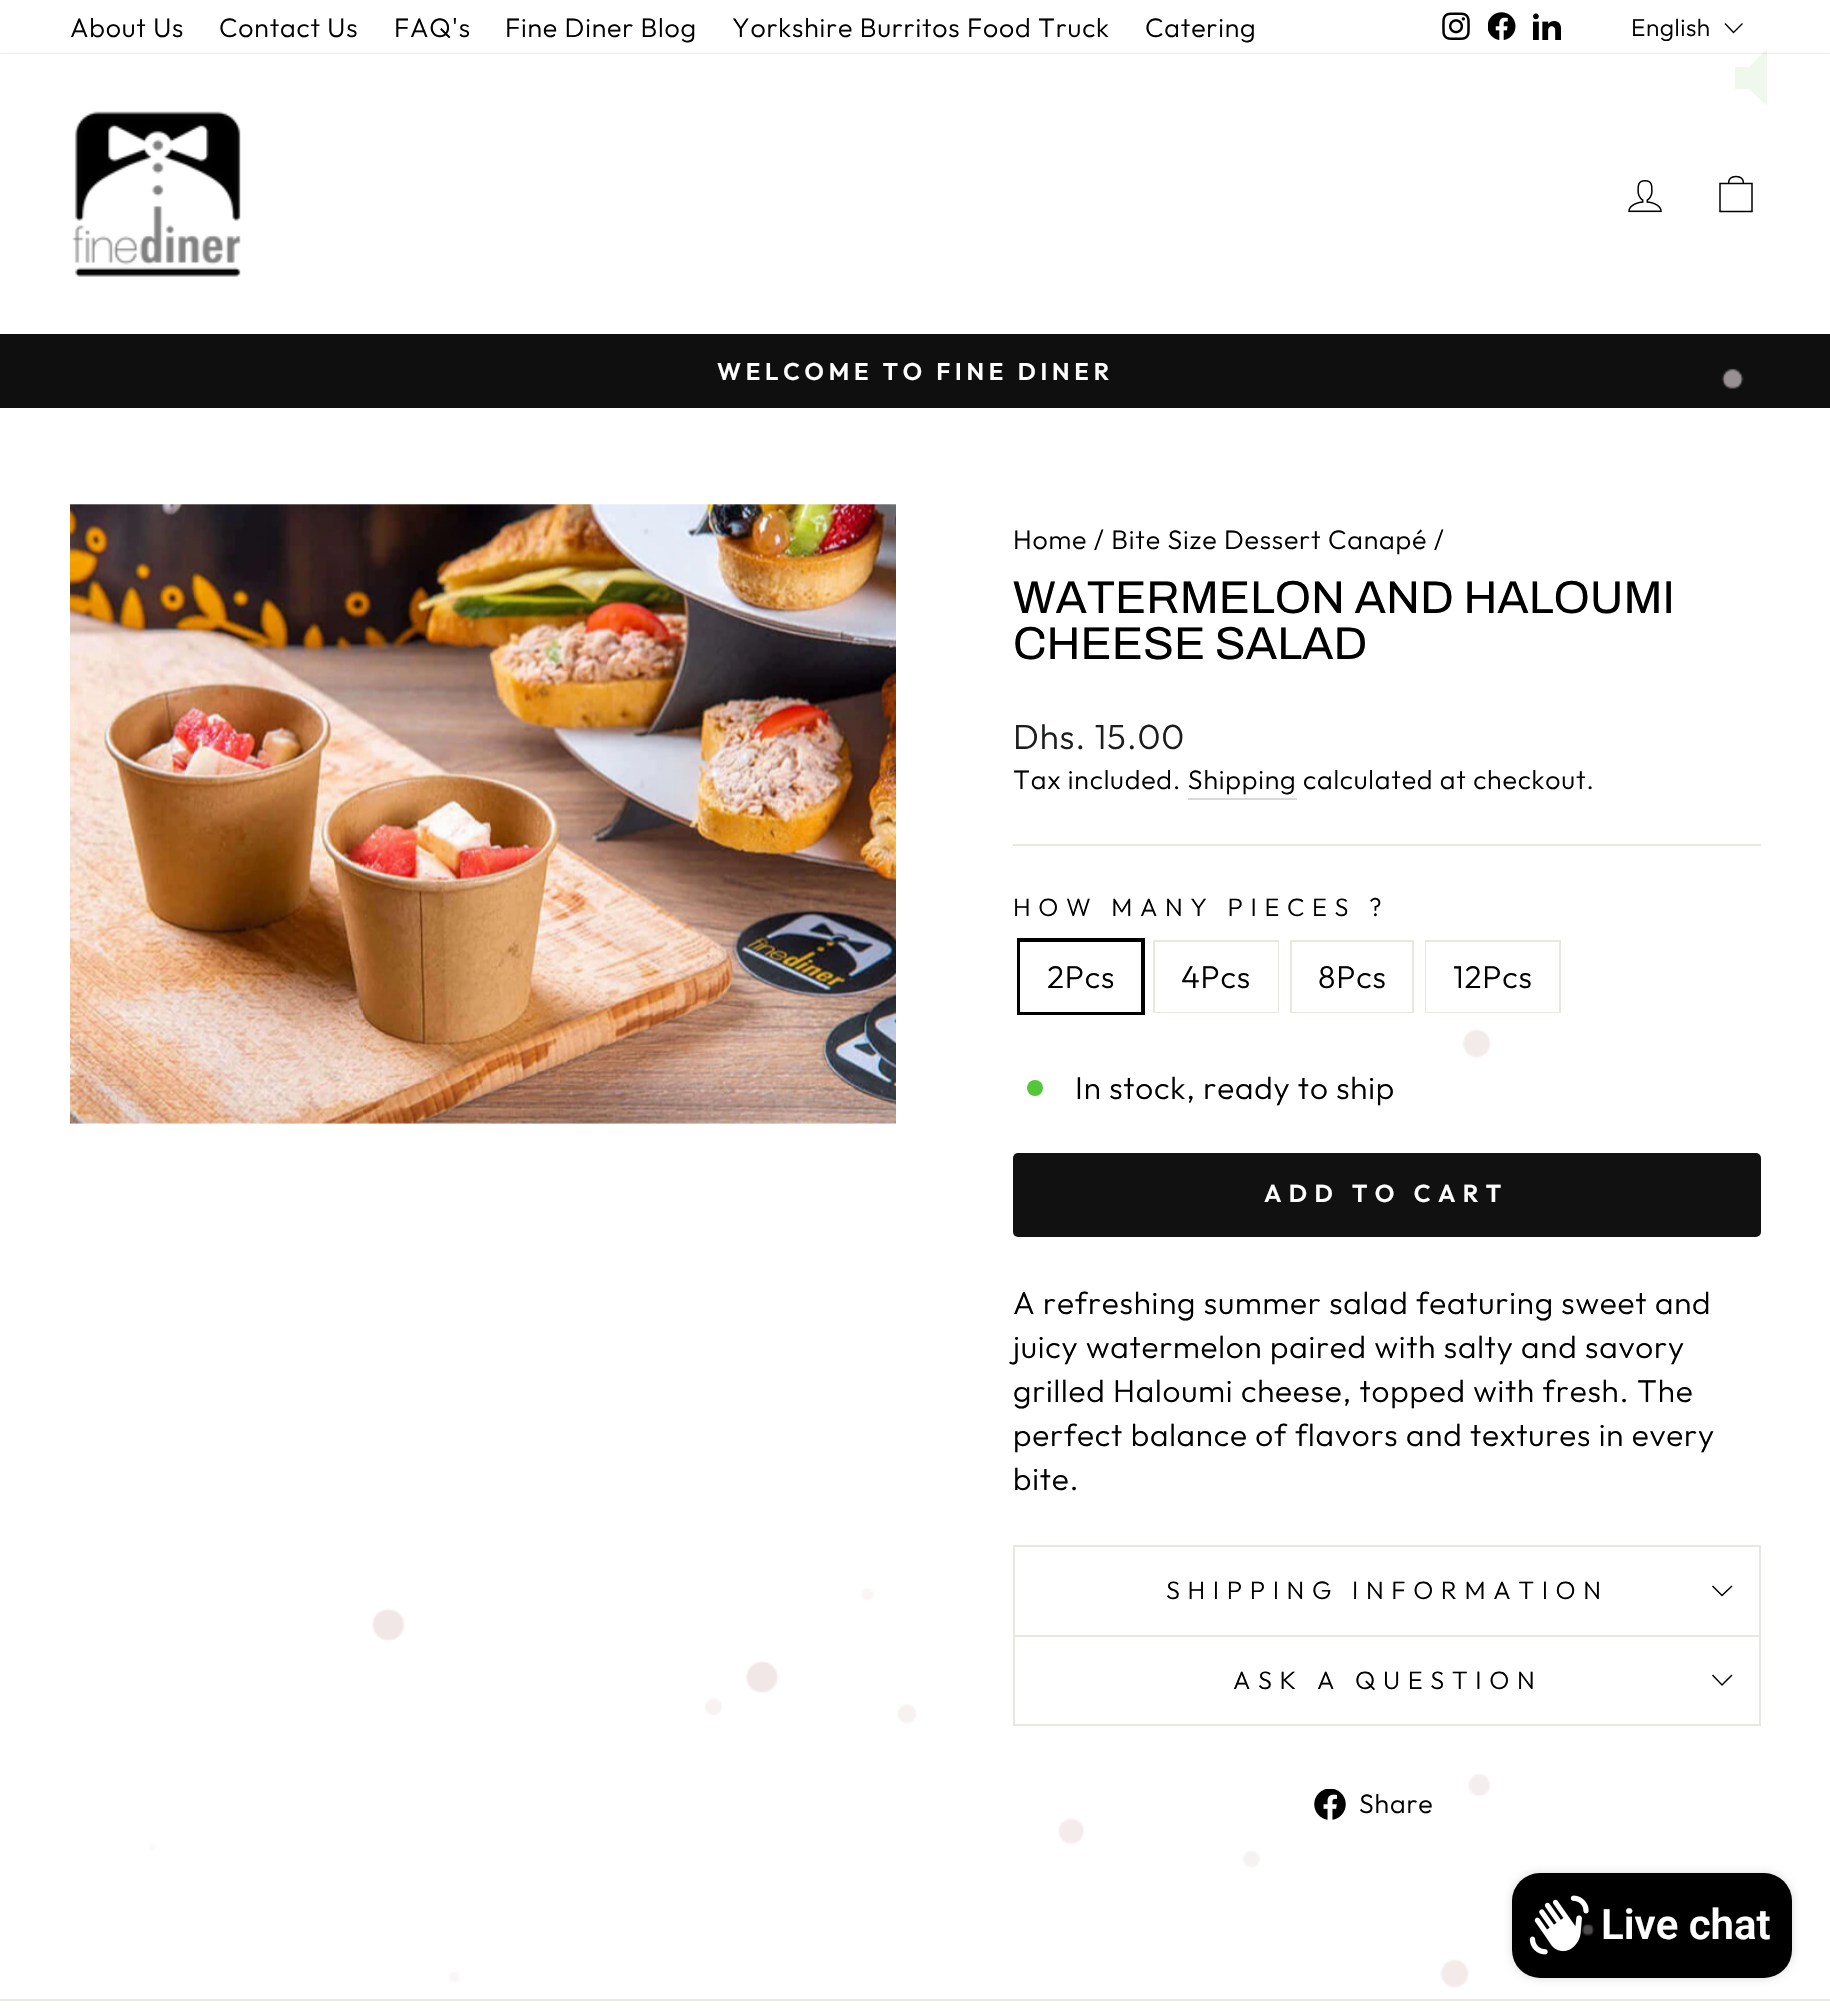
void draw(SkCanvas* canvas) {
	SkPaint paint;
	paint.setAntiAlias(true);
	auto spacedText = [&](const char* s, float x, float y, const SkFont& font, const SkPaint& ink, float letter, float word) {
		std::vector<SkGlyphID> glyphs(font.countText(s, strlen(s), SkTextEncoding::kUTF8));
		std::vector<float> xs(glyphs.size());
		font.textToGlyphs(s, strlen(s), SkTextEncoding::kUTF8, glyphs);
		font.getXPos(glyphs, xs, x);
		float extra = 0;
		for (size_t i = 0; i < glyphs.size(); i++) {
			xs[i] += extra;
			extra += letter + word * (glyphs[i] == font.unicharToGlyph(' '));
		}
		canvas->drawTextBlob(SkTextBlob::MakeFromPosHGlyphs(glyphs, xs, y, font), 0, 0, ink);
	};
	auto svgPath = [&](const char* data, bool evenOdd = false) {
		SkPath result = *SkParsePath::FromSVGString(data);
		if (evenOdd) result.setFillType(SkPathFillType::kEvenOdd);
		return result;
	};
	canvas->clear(0xffffffff);
	SkFont f1(fontMgr->matchFamilyStyle("Outfit", SkFontStyle(300, SkFontStyle::kNormal_Width, SkFontStyle::kUpright_Slant)), 26.75);
	f1.setSubpixel(true);
	paint.setColor(0xff000000);
	spacedText("About Us", 70, 37, f1, paint, 0.8, 0);
	spacedText("Contact Us", 219, 37, f1, paint, 0.8, 0);
	spacedText("FAQ's", 394, 37, f1, paint, 0.8, 0);
	spacedText("Fine Diner Blog", 505, 37, f1, paint, 0.8, 0);
	spacedText("Yorkshire Burritos Food Truck", 732, 37, f1, paint, 0.8, 0);
	spacedText("Catering", 1145, 37, f1, paint, 0.8, 0);
	canvas->drawImageRect(SkImages::DeferredFromEncodedData(SkData::MakeFromFileName("img1.png")), SkRect::MakeXYWH(1442, 12, 28, 28), SkSamplingOptions());
	canvas->drawImageRect(SkImages::DeferredFromEncodedData(SkData::MakeFromFileName("img2.png")), SkRect::MakeXYWH(1488, 12, 28, 28), SkSamplingOptions());
	canvas->drawImageRect(SkImages::DeferredFromEncodedData(SkData::MakeFromFileName("img3.png")), SkRect::MakeXYWH(1533, 13, 28, 27), SkSamplingOptions());
	SkFont f2(fontMgr->matchFamilyStyle("Outfit", SkFontStyle(300, SkFontStyle::kNormal_Width, SkFontStyle::kUpright_Slant)), 24.5);
	f2.setSubpixel(true);
	spacedText("English", 1631, 36, f2, paint, 0.5, 0);
	paint.setStroke(true);
	paint.setStrokeWidth(1.4);
	canvas->drawPath(svgPath("M1725 23.5L1733.5 32.5L1742.5 23.5"), paint);
	paint.setStroke(false);
	paint.setColor(0xff0f0f0f);
	canvas->drawRect(SkRect::MakeXYWH(0, 334, 1830, 74), paint);
	paint.setColor(0x33000000);
	paint.setMaskFilter(SkMaskFilter::MakeBlur(kNormal_SkBlurStyle, 1));
	canvas->drawRect(SkRect::MakeXYWH(0, 54, 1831, 280), paint);
	paint.setMaskFilter(nullptr);
	paint.setColor(0xffffffff);
	canvas->drawRect(SkRect::MakeXYWH(0, 54, 1830, 280), paint);
	canvas->drawImageRect(SkImages::DeferredFromEncodedData(SkData::MakeFromFileName("img4.png")), SkRect::MakeXYWH(72, 111, 169, 166), SkSamplingOptions());
	canvas->drawImageRect(SkImages::DeferredFromEncodedData(SkData::MakeFromFileName("img5.png")), SkRect::MakeXYWH(1628, 180, 34, 33), SkSamplingOptions());
	paint.setStroke(true);
	paint.setStrokeWidth(1.5);
	paint.setColor(0xff000000);
	canvas->drawPath(svgPath("M1720 183.5H1752V211.5H1720ZM1728.5 183.5C1728.5 178 1732 176.5 1736 176.5C1740 176.5 1743.5 178 1743.5 183.5"), paint);
	SkFont f3(fontMgr->matchFamilyStyle("Outfit", SkFontStyle(600, SkFontStyle::kNormal_Width, SkFontStyle::kUpright_Slant)), 24.1);
	f3.setSubpixel(true);
	paint.setStroke(false);
	paint.setColor(0xffffffff);
	spacedText("WELCOME TO FINE DINER", 717, 380, f3, paint, 4.8, 0);
	canvas->drawImageRect(SkImages::DeferredFromEncodedData(SkData::MakeFromFileName("img6.png")), SkRect::MakeXYWH(70, 504, 826, 620), SkSamplingOptions());
	paint.setColor(0xff000000);
	spacedText("Home / Bite Size Dessert Canapé /", 1013, 549, f1, paint, 0.8, 0);
	SkFont f4(fontMgr->matchFamilyStyle("Archivo", SkFontStyle::Normal()), 46.1);
	f4.setSubpixel(true);
	canvas->drawString("WATERMELON AND HALOUMI", 1013, 613, f4, paint);
	canvas->drawString("CHEESE SALAD", 1013, 659, f4, paint);
	SkFont f5(fontMgr->matchFamilyStyle("Outfit", SkFontStyle(300, SkFontStyle::kNormal_Width, SkFontStyle::kUpright_Slant)), 35);
	f5.setSubpixel(true);
	paint.setColor(0xff1c1d1d);
	spacedText("Dhs. 15.00", 1013, 749, f5, paint, 0.8, 0);
	paint.setColor(0xff000000);
	spacedText("Tax included. Shipping", 1013, 789, f1, paint, 0.8, 0);
	spacedText("calculated at checkout.", 1303, 789, f1, paint, 0.8, 0);
	paint.setColor(0xffd9d9d9);
	canvas->drawRect(SkRect::MakeXYWH(1188, 798, 109, 2), paint);
	paint.setColor(0xffe8e8e1);
	canvas->drawRect(SkRect::MakeXYWH(1013, 844, 748, 2), paint);
	SkFont f6(fontMgr->matchFamilyStyle("Outfit", SkFontStyle(300, SkFontStyle::kNormal_Width, SkFontStyle::kUpright_Slant)), 25.25);
	f6.setSubpixel(true);
	paint.setColor(0xff000000);
	spacedText("HOW MANY PIECES ?", 1013, 916, f6, paint, 7.6, 0);
	paint.setStroke(true);
	paint.setStrokeWidth(4);
	canvas->drawRect(SkRect::MakeXYWH(1019, 940, 124, 73), paint);
	paint.setStroke(false);
	paint.setColor(0xffffffff);
	canvas->drawRect(SkRect::MakeXYWH(1020, 942, 121, 70), paint);
	SkFont f7(fontMgr->matchFamilyStyle("Outfit", SkFontStyle(300, SkFontStyle::kNormal_Width, SkFontStyle::kUpright_Slant)), 31.5);
	f7.setSubpixel(true);
	paint.setColor(0xff000000);
	spacedText("2Pcs", 1047, 988, f7, paint, 0.8, 0);
	paint.setStroke(true);
	paint.setStrokeWidth(2);
	paint.setColor(0xffe8e8e1);
	canvas->drawRect(SkRect::MakeXYWH(1154, 941, 124, 71), paint);
	paint.setStroke(false);
	paint.setColor(0xffffffff);
	canvas->drawRect(SkRect::MakeXYWH(1155, 942, 123, 70), paint);
	paint.setColor(0xff000000);
	spacedText("4Pcs", 1181, 988, f7, paint, 0.8, 0);
	paint.setStroke(true);
	paint.setColor(0xffe8e8e1);
	canvas->drawRect(SkRect::MakeXYWH(1291, 941, 122, 71), paint);
	paint.setStroke(false);
	paint.setColor(0xffffffff);
	canvas->drawRect(SkRect::MakeXYWH(1292, 1011, 120, 1), paint);
	paint.setColor(0xff000000);
	spacedText("8Pcs", 1318, 988, f7, paint, 0.8, 0);
	paint.setStroke(true);
	paint.setColor(0xffe8e8e1);
	canvas->drawRect(SkRect::MakeXYWH(1426, 941, 134, 71), paint);
	paint.setStroke(false);
	paint.setColor(0xffffffff);
	canvas->drawRect(SkRect::MakeXYWH(1426, 942, 133, 70), paint);
	paint.setColor(0xff000000);
	spacedText("12Pcs", 1453, 988, f7, paint, 0.8, 0);
	paint.setColor(0xff54c63a);
	canvas->drawCircle(1035, 1088, 8, paint);
	paint.setColor(0xff000000);
	spacedText("In stock, ready to ship", 1075, 1099, f7, paint, 0.8, 0);
	paint.setColor(0xff111111);
	canvas->drawRoundRect(SkRect::MakeXYWH(1013, 1153, 748, 84), 5, 5, paint);
	SkFont f8(fontMgr->matchFamilyStyle("Outfit", SkFontStyle(600, SkFontStyle::kNormal_Width, SkFontStyle::kUpright_Slant)), 24.5);
	f8.setSubpixel(true);
	paint.setColor(0xffffffff);
	spacedText("ADD TO CART", 1264, 1202, f8, paint, 7.3, 0);
	paint.setColor(0xff000000);
	spacedText("A refreshing summer salad featuring sweet and", 1013, 1314, f7, paint, 0.8, 0);
	spacedText("juicy watermelon paired with salty and savory", 1013, 1358, f7, paint, 0.8, 0);
	spacedText("grilled Haloumi cheese, topped with fresh. The", 1013, 1402, f7, paint, 0.8, 0);
	spacedText("perfect balance of flavors and textures in every", 1013, 1446, f7, paint, 0.8, 0);
	spacedText("bite.", 1013, 1490, f7, paint, 0.8, 0);
	paint.setColor(0xffe8e8e1);
	canvas->drawRect(SkRect::MakeXYWH(1013, 1635, 748, 2), paint);
	canvas->drawRect(SkRect::MakeXYWH(1013, 1545, 748, 2), paint);
	canvas->drawRect(SkRect::MakeXYWH(1759, 1545, 2, 90), paint);
	canvas->drawRect(SkRect::MakeXYWH(1013, 1545, 2, 90), paint);
	paint.setColor(0xff000000);
	spacedText("SHIPPING INFORMATION", 1166, 1599, f6, paint, 7.6, 0);
	paint.setStroke(true);
	paint.setStrokeWidth(1.5);
	canvas->drawPath(svgPath("M1712.5 1586L1722 1595.5L1732 1586"), paint);
	paint.setStroke(false);
	paint.setColor(0xffe8e8e1);
	canvas->drawRect(SkRect::MakeXYWH(1013, 1724, 748, 2), paint);
	canvas->drawRect(SkRect::MakeXYWH(1759, 1636, 2, 88), paint);
	canvas->drawRect(SkRect::MakeXYWH(1013, 1636, 2, 88), paint);
	paint.setColor(0xff000000);
	spacedText("ASK A QUESTION", 1233, 1689, f6, paint, 7.6, 0);
	paint.setStroke(true);
	canvas->drawPath(svgPath("M1712.5 1675L1722 1685L1732 1675"), paint);
	canvas->drawImageRect(SkImages::DeferredFromEncodedData(SkData::MakeFromFileName("img7.png")), SkRect::MakeXYWH(1314, 1789, 32, 31), SkSamplingOptions());
	paint.setStroke(false);
	spacedText("Share", 1359, 1813, f1, paint, 0.8, 0);
	paint.setColor(0xffe8e8e1);
	canvas->drawRect(SkRect::MakeXYWH(0, 1999, 1830, 2), paint);
	paint.setColor(0x1a6bb654);
	canvas->drawPath(svgPath("M1735 67V89H1749L1767 106V49L1749 67Z"), paint);
	paint.setColor(0x26000000);
	paint.setMaskFilter(SkMaskFilter::MakeBlur(kNormal_SkBlurStyle, 4.5));
	canvas->drawRoundRect(SkRect::MakeXYWH(1512, 1873, 280, 105), 28, 28, paint);
	paint.setMaskFilter(nullptr);
	paint.setColor(0xff000000);
	canvas->drawRoundRect(SkRect::MakeXYWH(1512, 1873, 280, 105), 28, 28, paint);
	canvas->drawImageRect(SkImages::DeferredFromEncodedData(SkData::MakeFromFileName("img9.png")), SkRect::MakeXYWH(1529, 1895, 60, 60), SkSamplingOptions());
	SkFont f9(fontMgr->matchFamilyStyle("Roboto", SkFontStyle(600, SkFontStyle::kNormal_Width, SkFontStyle::kUpright_Slant)), 42);
	f9.setSubpixel(true);
	paint.setColor(0xffffffff);
	canvas->drawString("Live chat", 1601, 1939, f9, paint);
	canvas->drawImageRect(SkImages::DeferredFromEncodedData(SkData::MakeFromFileName("img8.png")), SkRect::MakeXYWH(148, 368, 1596, 1620), SkSamplingOptions());
}
